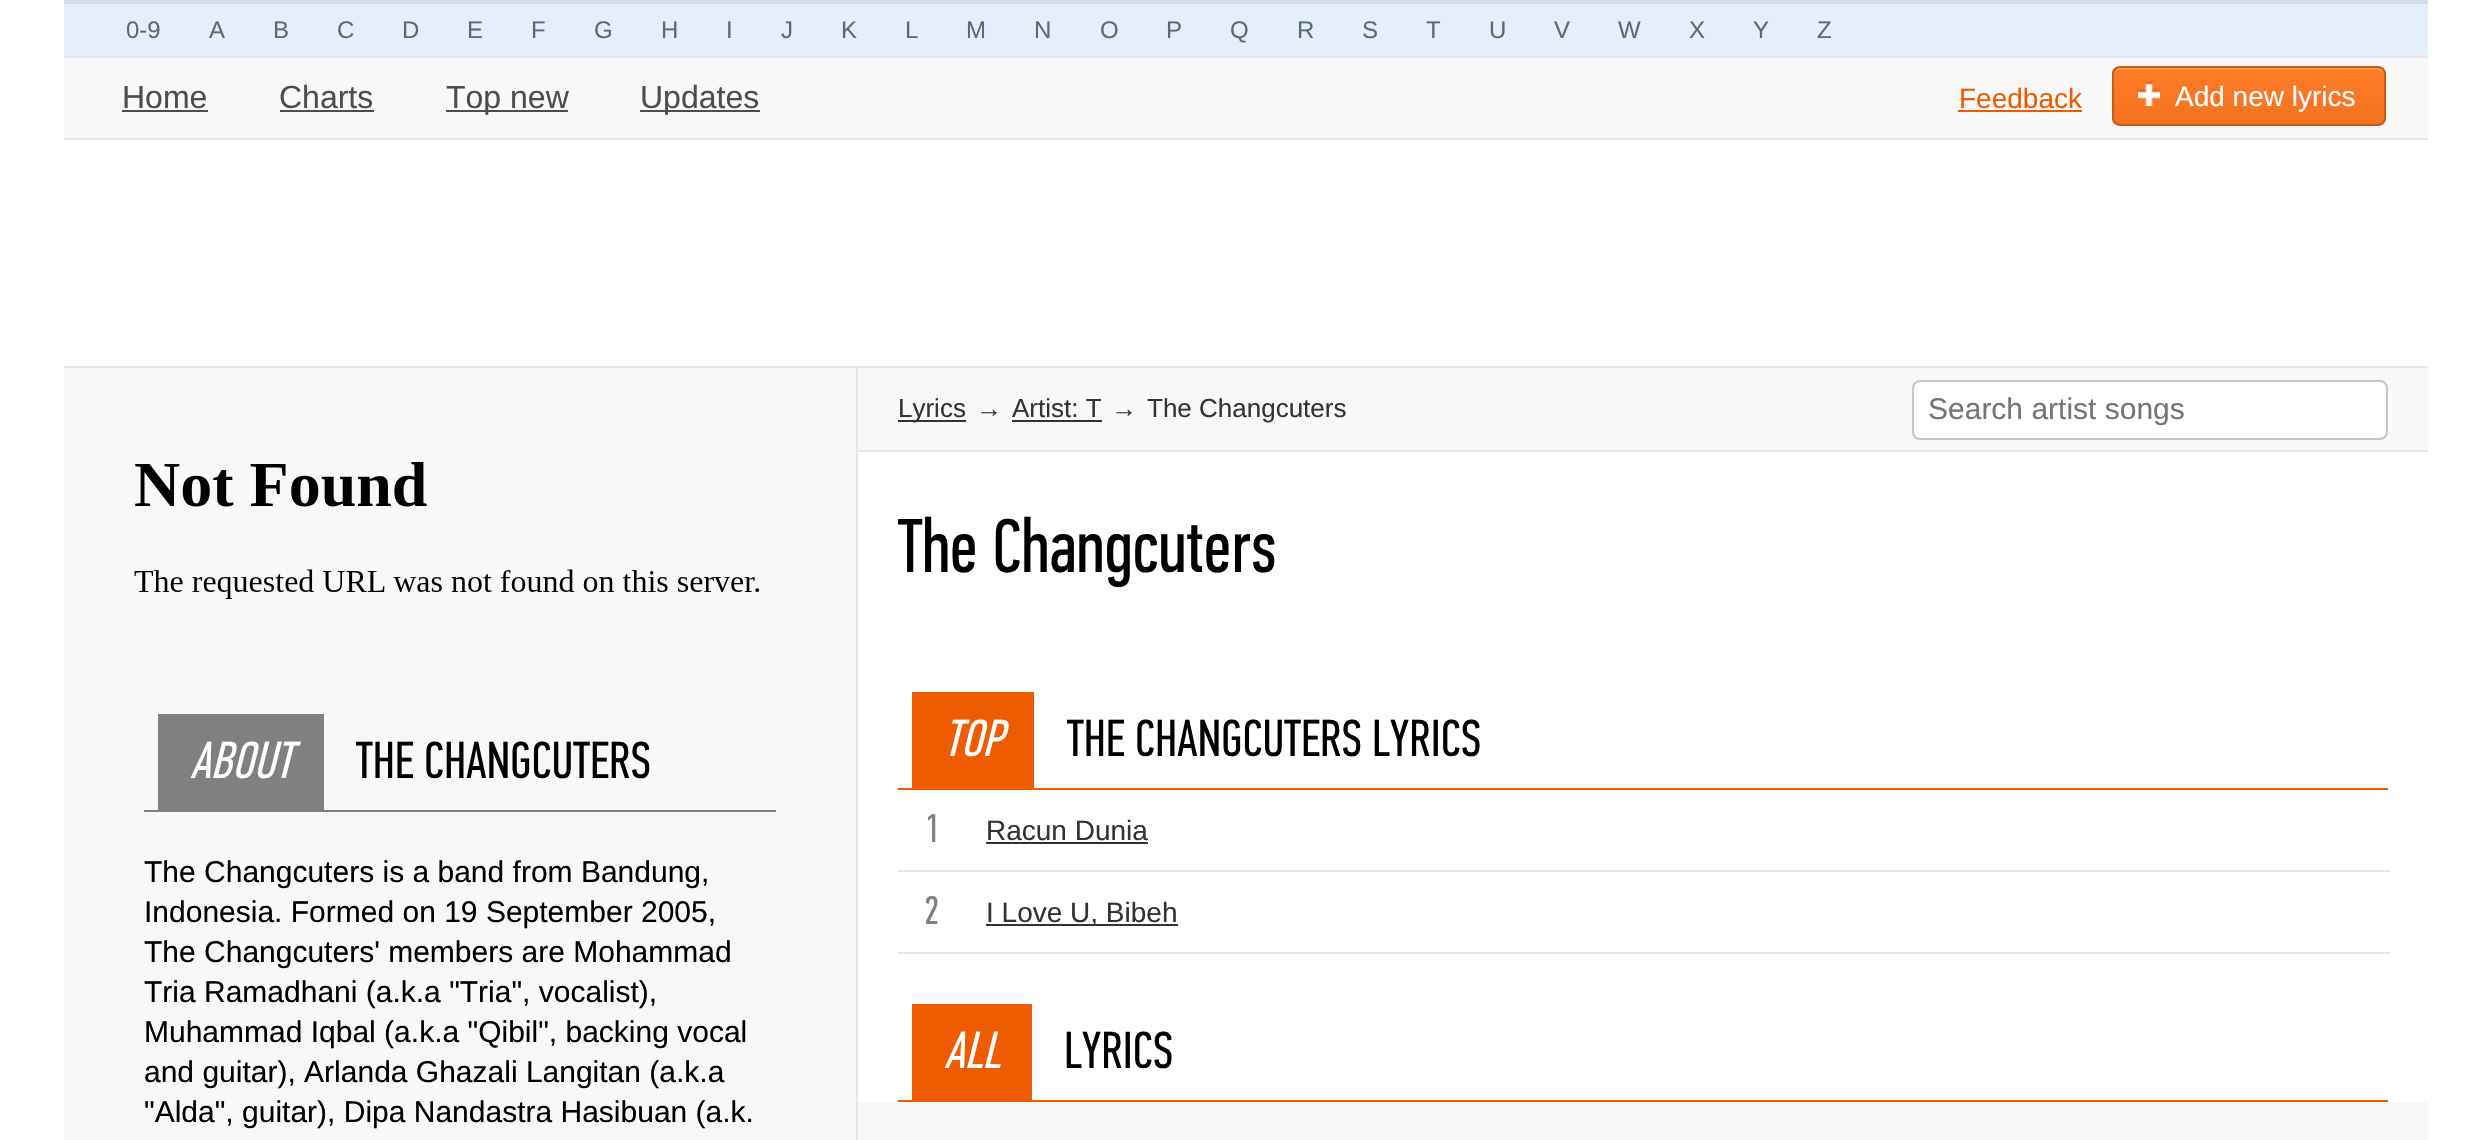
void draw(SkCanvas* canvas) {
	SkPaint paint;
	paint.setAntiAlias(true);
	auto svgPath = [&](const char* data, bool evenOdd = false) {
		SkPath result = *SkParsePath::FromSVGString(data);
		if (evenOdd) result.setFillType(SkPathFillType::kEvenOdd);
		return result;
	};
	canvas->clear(0xffffffff);
	{
		const SkColor colors[] = {0xffeaf3fd, 0xffd2dceb};
		const float stops[] = {0, 1};
		const SkPoint ends[] = {{1246, -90}, {1246, 4}};
		paint.setShader(SkGradientShader::MakeLinear(ends, colors, stops, 2, SkTileMode::kClamp));
		paint.setAlpha(255);
	}
	canvas->drawRect(SkRect::MakeXYWH(64, 0, 2364, 4), paint);
	paint.setShader(nullptr);
	paint.setColor(0xffe5effc);
	canvas->drawRect(SkRect::MakeXYWH(64, 4, 2364, 52), paint);
	SkFont f1(fontMgr->matchFamilyStyle("Liberation Sans", SkFontStyle::Normal()), 24);
	f1.setSubpixel(true);
	paint.setColor(0xff5b6879);
	canvas->drawString("0-9", 126, 38, f1, paint);
	canvas->drawString("A", 209, 38, f1, paint);
	canvas->drawString("B", 273, 38, f1, paint);
	canvas->drawString("C", 337, 38, f1, paint);
	canvas->drawString("D", 402, 38, f1, paint);
	canvas->drawString("E", 467, 38, f1, paint);
	canvas->drawString("F", 531, 38, f1, paint);
	canvas->drawString("G", 594, 38, f1, paint);
	canvas->drawString("H", 661, 38, f1, paint);
	canvas->drawString("I", 726, 38, f1, paint);
	canvas->drawString("J", 781, 38, f1, paint);
	canvas->drawString("K", 841, 38, f1, paint);
	canvas->drawString("L", 905, 38, f1, paint);
	canvas->drawString("M", 966, 38, f1, paint);
	canvas->drawString("N", 1034, 38, f1, paint);
	canvas->drawString("O", 1100, 38, f1, paint);
	canvas->drawString("P", 1166, 38, f1, paint);
	canvas->drawString("Q", 1230, 38, f1, paint);
	canvas->drawString("R", 1297, 38, f1, paint);
	canvas->drawString("S", 1362, 38, f1, paint);
	canvas->drawString("T", 1426, 38, f1, paint);
	canvas->drawString("U", 1489, 38, f1, paint);
	canvas->drawString("V", 1554, 38, f1, paint);
	canvas->drawString("W", 1618, 38, f1, paint);
	canvas->drawString("X", 1689, 38, f1, paint);
	canvas->drawString("Y", 1753, 38, f1, paint);
	canvas->drawString("Z", 1817, 38, f1, paint);
	paint.setColor(0xfff8f8f8);
	canvas->drawRect(SkRect::MakeXYWH(64, 58, 2364, 80), paint);
	paint.setColor(0xffe6e6e6);
	canvas->drawRect(SkRect::MakeXYWH(64, 56, 2364, 2), paint);
	canvas->drawRect(SkRect::MakeXYWH(64, 138, 2364, 2), paint);
	SkFont f2(fontMgr->matchFamilyStyle("Liberation Sans", SkFontStyle::Normal()), 32);
	f2.setSubpixel(true);
	paint.setColor(0xff4d4d4d);
	canvas->drawString("Home", 122, 108, f2, paint);
	canvas->drawRect(SkRect::MakeXYWH(122, 110, 86, 2), paint);
	canvas->drawString("Charts", 279, 108, f2, paint);
	canvas->drawRect(SkRect::MakeXYWH(280, 110, 94, 2), paint);
	canvas->drawRect(SkRect::MakeXYWH(446, 110, 122, 2), paint);
	canvas->drawString("Top new", 446, 108, f2, paint);
	canvas->drawRect(SkRect::MakeXYWH(640, 110, 120, 2), paint);
	canvas->drawString("Updates", 640, 108, f2, paint);
	SkFont f3(fontMgr->matchFamilyStyle("Liberation Sans", SkFontStyle::Normal()), 28);
	f3.setSubpixel(true);
	paint.setColor(0xffee5b01);
	canvas->drawString("Feedback", 1959, 108, f3, paint);
	canvas->drawRect(SkRect::MakeXYWH(1958, 110, 124, 2), paint);
	canvas->save();
	canvas->clipPath(svgPath("M2120 66H2378C2382.5 66 2386 69.5 2386 74V118C2386 122.5 2382.5 126 2378 126H2120C2115.5 126 2112 122.5 2112 118V74C2112 69.5 2115.5 66 2120 66Z"), true);
	{
		const SkColor colors[] = {0xffff7c29, 0xfff37320};
		const float stops[] = {0, 1};
		const SkPoint ends[] = {{2249, 68}, {2249, 124}};
		paint.setShader(SkGradientShader::MakeLinear(ends, colors, stops, 2, SkTileMode::kClamp));
		paint.setAlpha(255);
	}
	canvas->drawRect(SkRect::MakeXYWH(2112, 68, 274, 56), paint);
	canvas->restore();
	paint.setShader(nullptr);
	paint.setColor(0xffff9a45);
	canvas->drawPath(svgPath("M2120 70H2378C2381 70 2384 73 2384 76C2384 73 2383 69 2379 68H2119C2115 69 2114 73 2114 76C2114 73 2117 70 2120 70Z"), paint);
	paint.setStroke(true);
	paint.setStrokeWidth(2);
	paint.setColor(0xffca5b17);
	canvas->drawRoundRect(SkRect::MakeXYWH(2113, 67, 272, 58), 7, 7, paint);
	canvas->drawImageRect(SkImages::DeferredFromEncodedData(SkData::MakeFromFileName("img1.png")), SkRect::MakeXYWH(2138, 82, 22, 24), SkSamplingOptions());
	paint.setStroke(false);
	paint.setColor(0xffffffff);
	canvas->drawString("Add new lyrics", 2175, 106, f3, paint);
	paint.setColor(0xffe6e6e6);
	canvas->drawRect(SkRect::MakeXYWH(64, 366, 2364, 2), paint);
	paint.setColor(0xfff8f8f8);
	canvas->drawRect(SkRect::MakeXYWH(64, 368, 792, 772), paint);
	canvas->drawImageRect(SkImages::DeferredFromEncodedData(SkData::MakeFromFileName("img2.png")), SkRect::MakeXYWH(134, 462, 626, 137), SkSamplingOptions());
	paint.setColor(0xff808080);
	canvas->drawRect(SkRect::MakeXYWH(144, 810, 632, 2), paint);
	canvas->drawRect(SkRect::MakeXYWH(158, 714, 166, 96), paint);
	SkFont f4(fontMgr->matchFamilyStyle("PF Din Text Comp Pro", SkFontStyle::Italic()), 52);
	f4.setSubpixel(true);
	paint.setColor(0xffffffff);
	canvas->drawString("ABOUT", 190, 778, f4, paint);
	SkFont f5(fontMgr->matchFamilyStyle("PF Din Text Comp Pro", SkFontStyle::Normal()), 52);
	f5.setSubpixel(true);
	paint.setColor(0xff000000);
	canvas->drawString("THE CHANGCUTERS", 356, 778, f5, paint);
	SkFont f6(fontMgr->matchFamilyStyle("Liberation Sans", SkFontStyle::Normal()), 30);
	f6.setSubpixel(true);
	canvas->drawString("The Changcuters is a band from Bandung,", 144, 882, f6, paint);
	canvas->drawString("Indonesia. Formed on 19 September 2005,", 144, 922, f6, paint);
	canvas->drawString("The Changcuters' members are Mohammad", 144, 962, f6, paint);
	canvas->drawString("Tria Ramadhani (a.k.a \"Tria\", vocalist),", 144, 1002, f6, paint);
	canvas->drawString("Muhammad Iqbal (a.k.a \"Qibil\", backing vocal", 144, 1042, f6, paint);
	canvas->drawString("and guitar), Arlanda Ghazali Langitan (a.k.a", 144, 1082, f6, paint);
	canvas->drawString("\"Alda\", guitar), Dipa Nandastra Hasibuan (a.k.", 144, 1122, f6, paint);
	paint.setColor(0xffe6e6e6);
	canvas->drawRect(SkRect::MakeXYWH(856, 368, 2, 772), paint);
	paint.setColor(0xfff8f8f8);
	canvas->drawRect(SkRect::MakeXYWH(858, 368, 1570, 82), paint);
	paint.setColor(0xffe6e6e6);
	canvas->drawRect(SkRect::MakeXYWH(858, 450, 1570, 2), paint);
	paint.setColor(0xff333333);
	canvas->drawRect(SkRect::MakeXYWH(898, 420, 68, 2), paint);
	SkFont f7(fontMgr->matchFamilyStyle("Liberation Sans", SkFontStyle::Normal()), 26);
	f7.setSubpixel(true);
	canvas->drawString("Lyrics", 898, 417, f7, paint);
	canvas->drawString("→", 976, 417, f7, paint);
	canvas->drawString("Artist: T", 1012, 417, f7, paint);
	canvas->drawRect(SkRect::MakeXYWH(1012, 420, 90, 2), paint);
	canvas->drawString("→", 1111, 417, f7, paint);
	canvas->drawString("The Changcuters", 1147, 417, f7, paint);
	paint.setColor(0xffffffff);
	canvas->drawRoundRect(SkRect::MakeXYWH(1913, 381, 474, 58), 7, 7, paint);
	paint.setStroke(true);
	paint.setColor(0xffbcc8d6);
	canvas->drawRoundRect(SkRect::MakeXYWH(1913, 381, 474, 58), 7, 7, paint);
	paint.setStroke(false);
	paint.setColor(0xff757575);
	canvas->drawString("Search artist songs", 1928, 419, f6, paint);
	SkFont f8(fontMgr->matchFamilyStyle("PF Din Text Comp Pro", SkFontStyle::Normal()), 76);
	f8.setSubpixel(true);
	paint.setColor(0xff000000);
	canvas->drawString("The Changcuters", 898, 572, f8, paint);
	paint.setColor(0xffee5b01);
	canvas->drawRect(SkRect::MakeXYWH(898, 788, 1490, 2), paint);
	canvas->drawRect(SkRect::MakeXYWH(912, 692, 122, 96), paint);
	paint.setColor(0xffffffff);
	canvas->drawString("TOP", 944, 756, f4, paint);
	paint.setColor(0xff000000);
	canvas->drawString("THE CHANGCUTERS LYRICS", 1067, 756, f5, paint);
	paint.setColor(0xffe5e5e5);
	canvas->drawRect(SkRect::MakeXYWH(898, 870, 1492, 2), paint);
	SkFont f9(fontMgr->matchFamilyStyle("PF Din Text Comp Pro", SkFontStyle::Normal()), 40);
	f9.setSubpixel(true);
	paint.setColor(0xff808080);
	canvas->drawString("1", 924, 842, f9, paint);
	paint.setColor(0xff333333);
	canvas->drawString("Racun Dunia", 986, 840, f3, paint);
	canvas->drawRect(SkRect::MakeXYWH(986, 842, 162, 2), paint);
	paint.setColor(0xffe5e5e5);
	canvas->drawRect(SkRect::MakeXYWH(898, 952, 1492, 2), paint);
	paint.setColor(0xff808080);
	canvas->drawString("2", 924, 924, f9, paint);
	paint.setColor(0xff333333);
	canvas->drawRect(SkRect::MakeXYWH(986, 924, 192, 2), paint);
	canvas->drawString("I Love U, Bibeh", 986, 922, f3, paint);
	paint.setColor(0xffee5b01);
	canvas->drawRect(SkRect::MakeXYWH(898, 1100, 1490, 2), paint);
	canvas->drawRect(SkRect::MakeXYWH(912, 1004, 120, 96), paint);
	paint.setColor(0xffffffff);
	canvas->drawString("ALL", 944, 1068, f4, paint);
	paint.setColor(0xff000000);
	canvas->drawString("LYRICS", 1064, 1068, f5, paint);
	paint.setColor(0xfff8f8f8);
	canvas->drawRect(SkRect::MakeXYWH(858, 1102, 1570, 38), paint);
}
